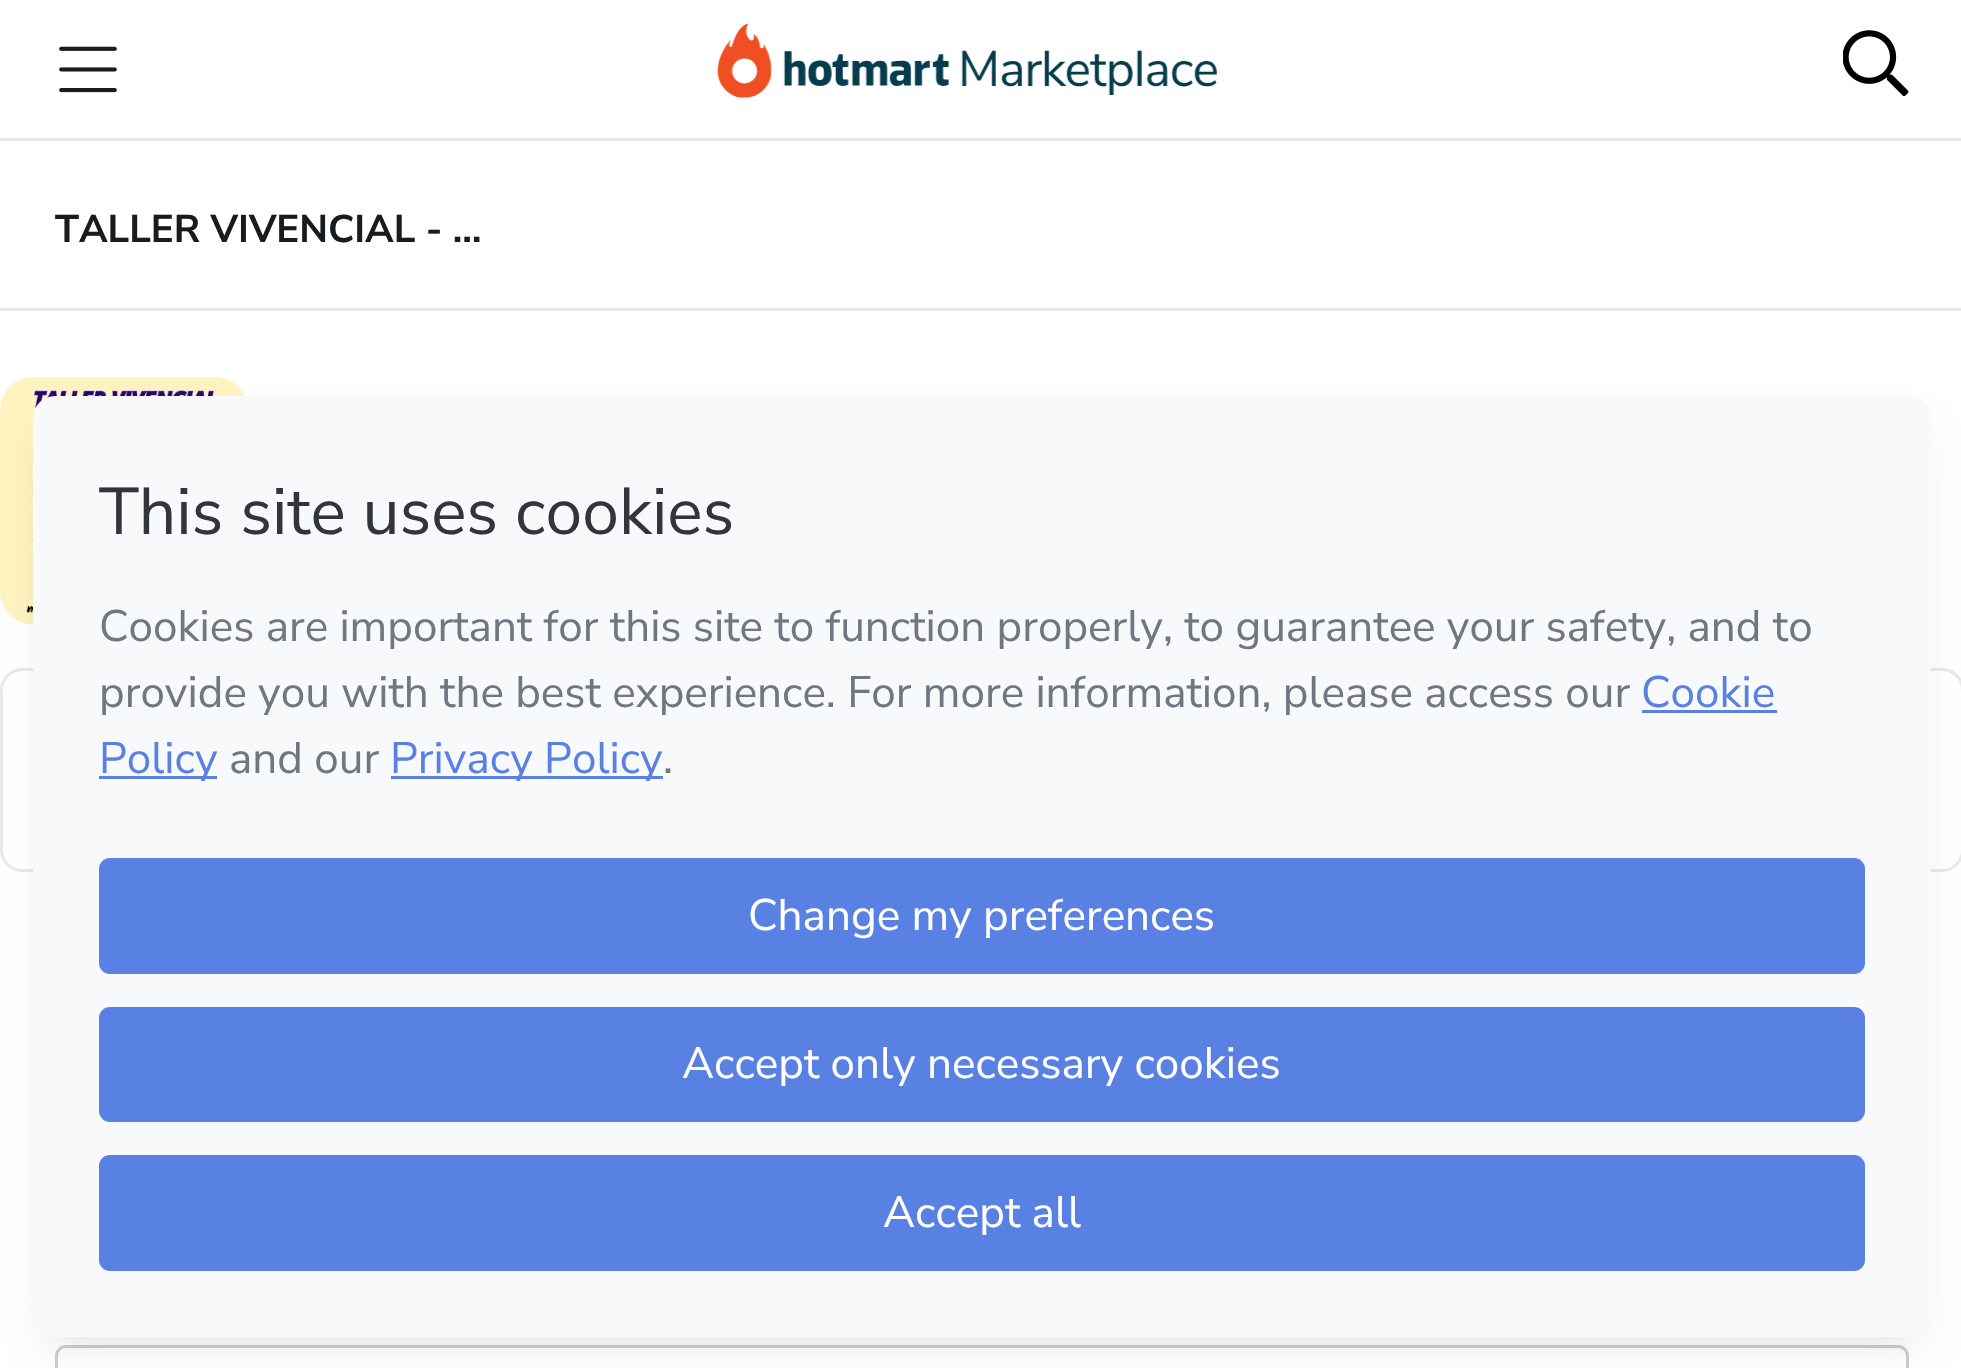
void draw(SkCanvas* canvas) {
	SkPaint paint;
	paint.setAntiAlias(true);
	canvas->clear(0xffffffff);
	paint.setColor(0xffe6e9ed);
	canvas->drawRect(SkRect::MakeXYWH(0, 138, 1961, 3), paint);
	canvas->drawImageRect(SkImages::DeferredFromEncodedData(SkData::MakeFromFileName("img1.png")), SkRect::MakeXYWH(59, 46, 58, 47), SkSamplingOptions());
	canvas->drawImageRect(SkImages::DeferredFromEncodedData(SkData::MakeFromFileName("img2.png")), SkRect::MakeXYWH(717, 23, 500, 75), SkSamplingOptions());
	canvas->drawImageRect(SkImages::DeferredFromEncodedData(SkData::MakeFromFileName("img3.png")), SkRect::MakeXYWH(1843, 30, 66, 66), SkSamplingOptions());
	canvas->drawRect(SkRect::MakeXYWH(0, 308, 1961, 3), paint);
	SkFont f1(fontMgr->matchFamilyStyle("Nunito Sans", SkFontStyle::Bold()), 38.5);
	f1.setSubpixel(true);
	paint.setColor(0xff191c1f);
	canvas->drawString("TALLER VIVENCIAL - …", 55, 242, f1, paint);
	canvas->drawImageRect(SkImages::DeferredFromEncodedData(SkData::MakeFromFileName("img4.png")), SkRect::MakeXYWH(0, 376, 245, 249), SkSamplingOptions());
	paint.setStroke(true);
	paint.setStrokeWidth(3);
	paint.setColor(0xffe6e9ed);
	canvas->drawRoundRect(SkRect::MakeXYWH(1.5, 669.5, 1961, 201), 20.5, 20.5, paint);
	paint.setColor(0xffc9ced4);
	canvas->drawRoundRect(SkRect::MakeXYWH(56.5, 1346.5, 1851, 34), 9.5, 9.5, paint);
	paint.setStroke(false);
	paint.setColor(0x1f000000);
	paint.setMaskFilter(SkMaskFilter::MakeBlur(kNormal_SkBlurStyle, 22));
	canvas->drawRoundRect(SkRect::MakeXYWH(50, 435, 1864, 907), 6, 6, paint);
	paint.setMaskFilter(nullptr);
	paint.setColor(0xfff7f9fa);
	canvas->drawRoundRect(SkRect::MakeXYWH(33, 396, 1898, 941), 22, 22, paint);
	SkFont f2(fontMgr->matchFamilyStyle("Nunito Sans", SkFontStyle::Normal()), 66);
	f2.setSubpixel(true);
	paint.setColor(0xff32363b);
	canvas->drawString("This site uses cookies", 99, 534, f2, paint);
	SkFont f3(fontMgr->matchFamilyStyle("Nunito Sans", SkFontStyle::Normal()), 44);
	f3.setSubpixel(true);
	paint.setColor(0xff707780);
	canvas->drawString("Cookies are important for this site to function properly, to guarantee your safety, and to", 99, 641, f3, paint);
	canvas->drawString("provide you with the best experience. For more information, please access our", 99, 707, f3, paint);
	paint.setColor(0xff5981e3);
	canvas->drawString("Cookie", 1641, 707, f3, paint);
	canvas->drawRect(SkRect::MakeXYWH(1642, 710, 135, 3), paint);
	canvas->drawRect(SkRect::MakeXYWH(99, 776, 118, 3), paint);
	canvas->drawString("Policy", 99, 773, f3, paint);
	paint.setColor(0xff707780);
	canvas->drawString("and our", 229, 773, f3, paint);
	paint.setColor(0xff5981e3);
	canvas->drawRect(SkRect::MakeXYWH(391, 776, 272, 3), paint);
	canvas->drawString("Privacy Policy", 390, 773, f3, paint);
	paint.setColor(0xff707780);
	canvas->drawString(".", 663, 773, f3, paint);
	paint.setColor(0xff5981e3);
	canvas->drawRoundRect(SkRect::MakeXYWH(100.5, 859.5, 1763, 113), 9.5, 9.5, paint);
	paint.setStroke(true);
	canvas->drawRoundRect(SkRect::MakeXYWH(100.5, 859.5, 1763, 113), 9.5, 9.5, paint);
	paint.setStroke(false);
	paint.setColor(0xffffffff);
	canvas->drawString("Change my preferences", 748, 930, f3, paint);
	paint.setColor(0xff5981e3);
	canvas->drawRoundRect(SkRect::MakeXYWH(100.5, 1008.5, 1763, 112), 9.5, 9.5, paint);
	paint.setStroke(true);
	canvas->drawRoundRect(SkRect::MakeXYWH(100.5, 1008.5, 1763, 112), 9.5, 9.5, paint);
	paint.setStroke(false);
	paint.setColor(0xffffffff);
	canvas->drawString("Accept only necessary cookies", 682, 1078, f3, paint);
	paint.setColor(0xff5981e3);
	canvas->drawRoundRect(SkRect::MakeXYWH(100.5, 1156.5, 1763, 113), 9.5, 9.5, paint);
	paint.setStroke(true);
	canvas->drawRoundRect(SkRect::MakeXYWH(100.5, 1156.5, 1763, 113), 9.5, 9.5, paint);
	paint.setStroke(false);
	paint.setColor(0xffffffff);
	canvas->drawString("Accept all", 883, 1227, f3, paint);
}
